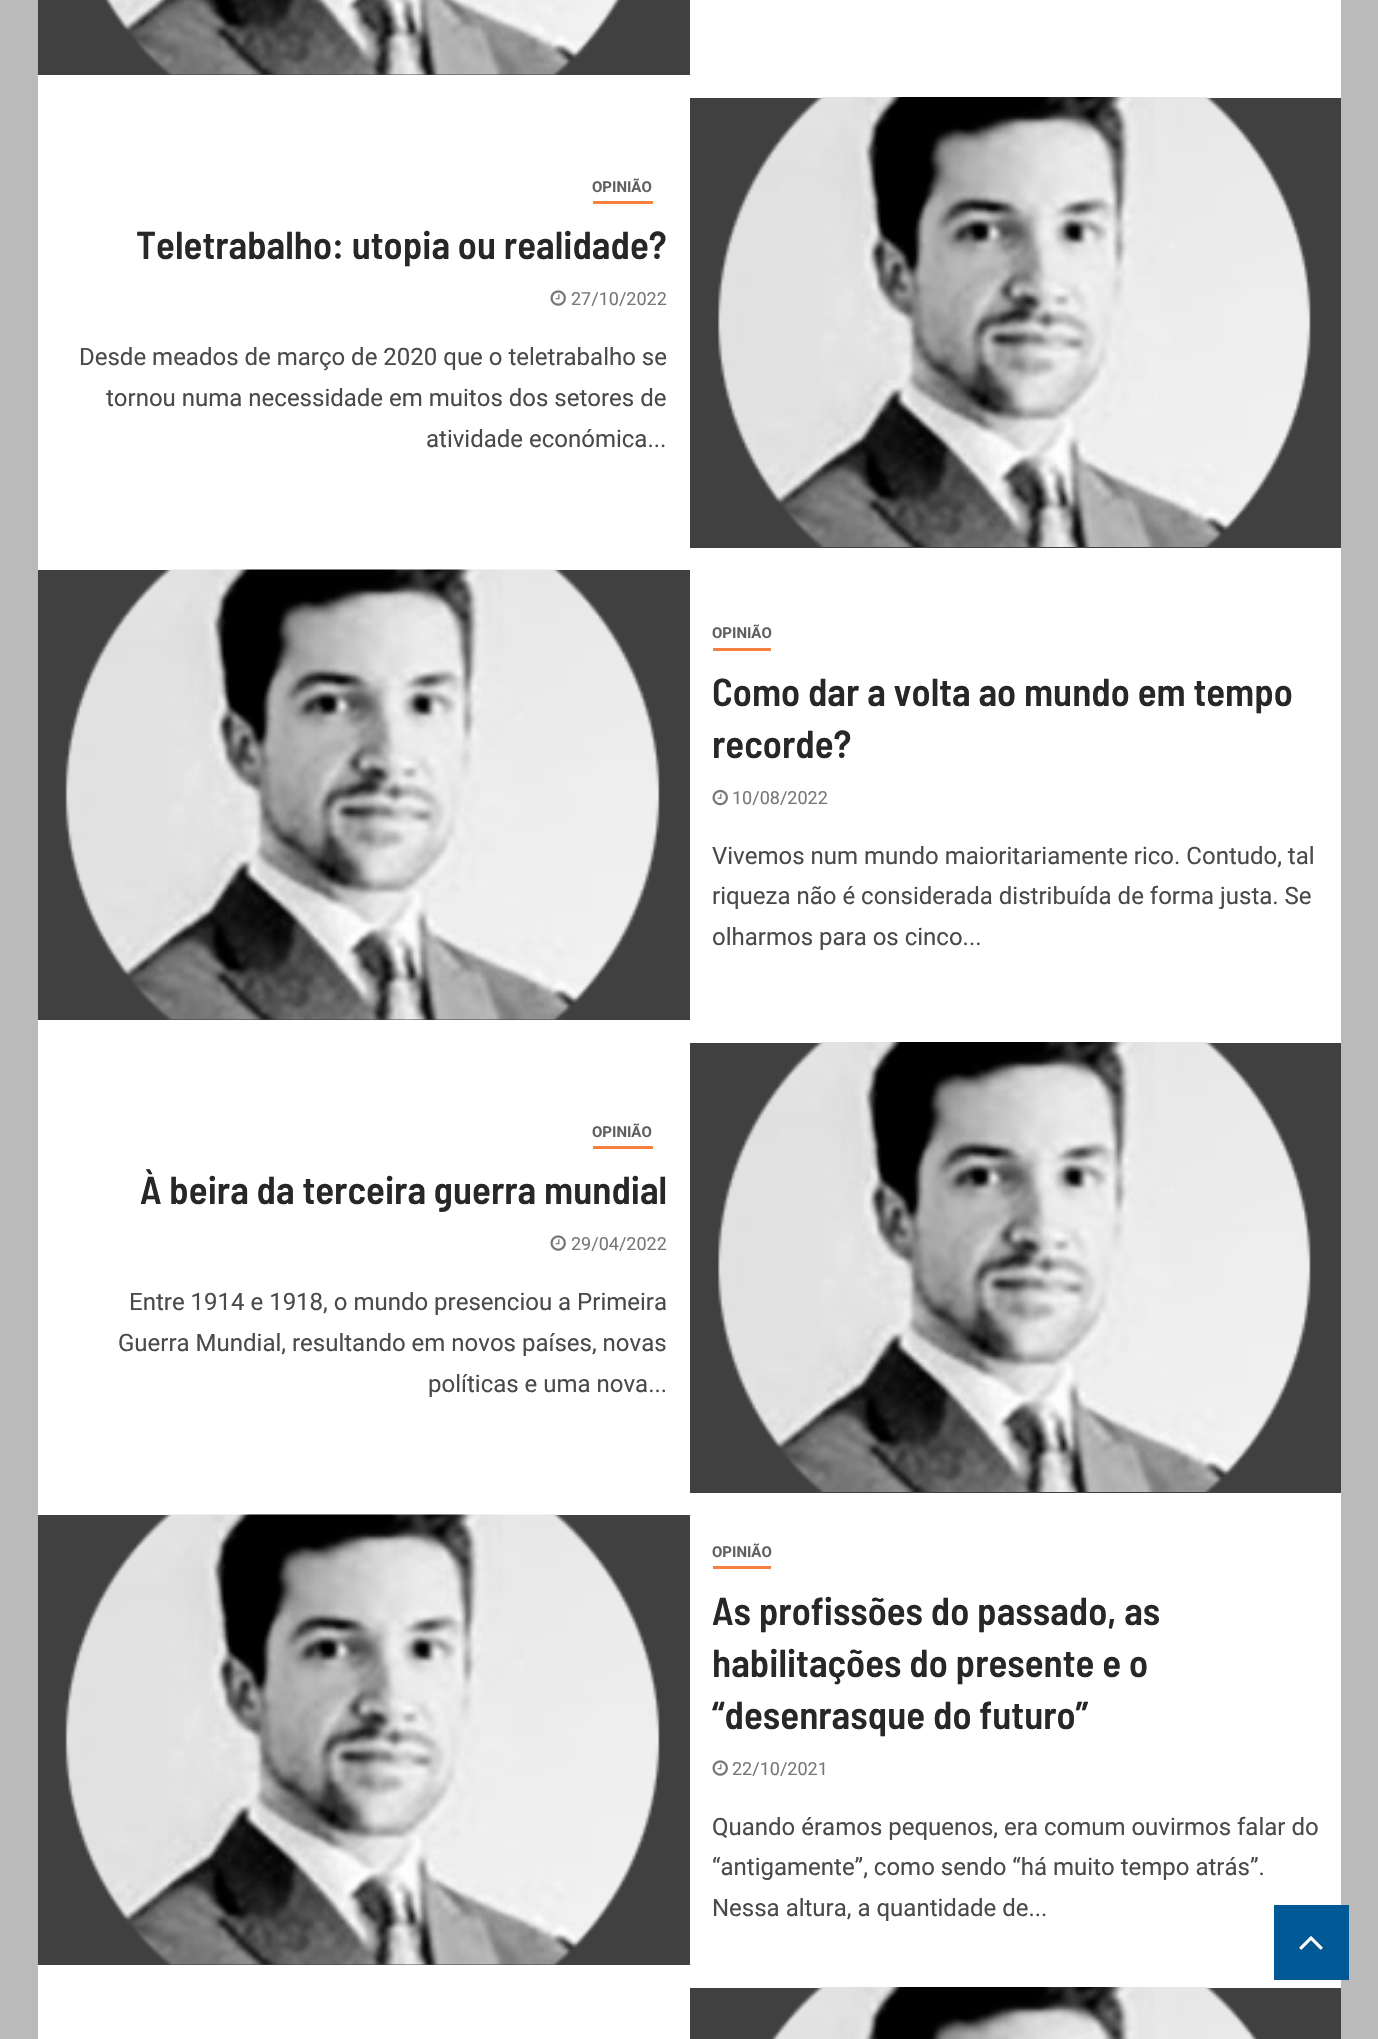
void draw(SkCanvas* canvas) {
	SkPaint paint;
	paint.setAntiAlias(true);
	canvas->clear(0xffbababa);
	paint.setColor(0xffffffff);
	canvas->drawRect(SkRect::MakeXYWH(38, 0, 1303, 2039), paint);
	paint.setColor(0xff404040);
	canvas->drawRect(SkRect::MakeXYWH(38, 0, 652, 75), paint);
	canvas->drawImageRect(SkImages::DeferredFromEncodedData(SkData::MakeFromFileName("img1.png")), SkRect::MakeXYWH(105, 0, 516, 75), SkSamplingOptions());
	paint.setColor(0xfff58040);
	canvas->drawRect(SkRect::MakeXYWH(593, 201, 60, 3), paint);
	SkFont f1(fontMgr->matchFamilyStyle("Roboto", SkFontStyle::Bold()), 15);
	f1.setSubpixel(true);
	paint.setColor(0xff606060);
	canvas->drawString("OPINIÃO", 592, 192, f1, paint);
	SkFont f2(fontMgr->matchFamilyStyle("Barlow Semi Condensed", SkFontStyle(600, SkFontStyle::kNormal_Width, SkFontStyle::kUpright_Slant)), 39);
	f2.setSubpixel(true);
	paint.setColor(0xff272727);
	canvas->drawString("Teletrabalho: utopia ou realidade?", 136, 259, f2, paint);
	canvas->drawImageRect(SkImages::DeferredFromEncodedData(SkData::MakeFromFileName("img2.png")), SkRect::MakeXYWH(550, 290, 16, 16), SkSamplingOptions());
	SkFont f3(fontMgr->matchFamilyStyle("Roboto", SkFontStyle::Normal()), 18);
	f3.setSubpixel(true);
	paint.setColor(0xff777777);
	canvas->drawString("27/10/2022", 571, 305, f3, paint);
	SkFont f4(fontMgr->matchFamilyStyle("Roboto", SkFontStyle::Normal()), 24);
	f4.setSubpixel(true);
	paint.setColor(0xff4a4a4a);
	canvas->drawString("Desde meados de março de 2020 que o teletrabalho se", 79, 365, f4, paint);
	canvas->drawString("tornou numa necessidade em muitos dos setores de", 106, 406, f4, paint);
	canvas->drawString("atividade económica...", 426, 447, f4, paint);
	paint.setColor(0xff404040);
	canvas->drawRect(SkRect::MakeXYWH(690, 98, 651, 450), paint);
	canvas->drawImageRect(SkImages::DeferredFromEncodedData(SkData::MakeFromFileName("img3.png")), SkRect::MakeXYWH(718, 97, 593, 450), SkSamplingOptions());
	canvas->drawRect(SkRect::MakeXYWH(38, 570, 652, 450), paint);
	canvas->drawImageRect(SkImages::DeferredFromEncodedData(SkData::MakeFromFileName("img4.png")), SkRect::MakeXYWH(65, 569, 595, 451), SkSamplingOptions());
	paint.setColor(0xfff58040);
	canvas->drawRect(SkRect::MakeXYWH(713, 648, 58, 3), paint);
	paint.setColor(0xff606060);
	canvas->drawString("OPINIÃO", 712, 638, f1, paint);
	paint.setColor(0xff272727);
	canvas->drawString("Como dar a volta ao mundo em tempo", 712, 706, f2, paint);
	canvas->drawString("recorde?", 712, 758, f2, paint);
	canvas->drawImageRect(SkImages::DeferredFromEncodedData(SkData::MakeFromFileName("img5.png")), SkRect::MakeXYWH(712, 789, 16, 17), SkSamplingOptions());
	paint.setColor(0xff777777);
	canvas->drawString("10/08/2022", 732, 804, f3, paint);
	paint.setColor(0xff4a4a4a);
	canvas->drawString("Vivemos num mundo maioritariamente rico. Contudo, tal", 712, 864, f4, paint);
	canvas->drawString("riqueza não é considerada distribuída de forma justa. Se", 712, 904, f4, paint);
	canvas->drawString("olharmos para os cinco...", 712, 945, f4, paint);
	paint.setColor(0xfff58040);
	canvas->drawRect(SkRect::MakeXYWH(593, 1146, 60, 3), paint);
	paint.setColor(0xff606060);
	canvas->drawString("OPINIÃO", 592, 1137, f1, paint);
	paint.setColor(0xff272727);
	canvas->drawString("À beira da terceira guerra mundial", 140, 1204, f2, paint);
	canvas->drawImageRect(SkImages::DeferredFromEncodedData(SkData::MakeFromFileName("img2.png")), SkRect::MakeXYWH(550, 1235, 16, 16), SkSamplingOptions());
	paint.setColor(0xff777777);
	canvas->drawString("29/04/2022", 571, 1250, f3, paint);
	paint.setColor(0xff4a4a4a);
	canvas->drawString("Entre 1914 e 1918, o mundo presenciou a Primeira", 129, 1310, f4, paint);
	canvas->drawString("Guerra Mundial, resultando em novos países, novas", 118, 1351, f4, paint);
	canvas->drawString("políticas e uma nova...", 428, 1392, f4, paint);
	paint.setColor(0xff404040);
	canvas->drawRect(SkRect::MakeXYWH(690, 1043, 651, 450), paint);
	canvas->drawImageRect(SkImages::DeferredFromEncodedData(SkData::MakeFromFileName("img3.png")), SkRect::MakeXYWH(718, 1042, 593, 450), SkSamplingOptions());
	canvas->drawRect(SkRect::MakeXYWH(38, 1515, 652, 450), paint);
	canvas->drawImageRect(SkImages::DeferredFromEncodedData(SkData::MakeFromFileName("img4.png")), SkRect::MakeXYWH(65, 1514, 595, 451), SkSamplingOptions());
	paint.setColor(0xfff58040);
	canvas->drawRect(SkRect::MakeXYWH(713, 1566, 58, 3), paint);
	paint.setColor(0xff606060);
	canvas->drawString("OPINIÃO", 712, 1557, f1, paint);
	paint.setColor(0xff272727);
	canvas->drawString("As profissões do passado, as", 712, 1625, f2, paint);
	canvas->drawString("habilitações do presente e o", 712, 1677, f2, paint);
	canvas->drawString("“desenrasque do futuro”", 712, 1729, f2, paint);
	canvas->drawImageRect(SkImages::DeferredFromEncodedData(SkData::MakeFromFileName("img2.png")), SkRect::MakeXYWH(712, 1760, 16, 16), SkSamplingOptions());
	paint.setColor(0xff777777);
	canvas->drawString("22/10/2021", 732, 1775, f3, paint);
	paint.setColor(0xff4a4a4a);
	canvas->drawString("Quando éramos pequenos, era comum ouvirmos falar do", 712, 1835, f4, paint);
	canvas->drawString("“antigamente”, como sendo “há muito tempo atrás”.", 712, 1875, f4, paint);
	canvas->drawString("Nessa altura, a quantidade de...", 712, 1916, f4, paint);
	paint.setColor(0xff404040);
	canvas->drawRect(SkRect::MakeXYWH(690, 1988, 651, 51), paint);
	canvas->drawImageRect(SkImages::DeferredFromEncodedData(SkData::MakeFromFileName("img6.png")), SkRect::MakeXYWH(770, 1987, 488, 52), SkSamplingOptions());
	paint.setColor(0xff005894);
	canvas->drawRect(SkRect::MakeXYWH(1274, 1905, 75, 75), paint);
	canvas->drawImageRect(SkImages::DeferredFromEncodedData(SkData::MakeFromFileName("img7.png")), SkRect::MakeXYWH(1299, 1936, 24, 14), SkSamplingOptions());
}
